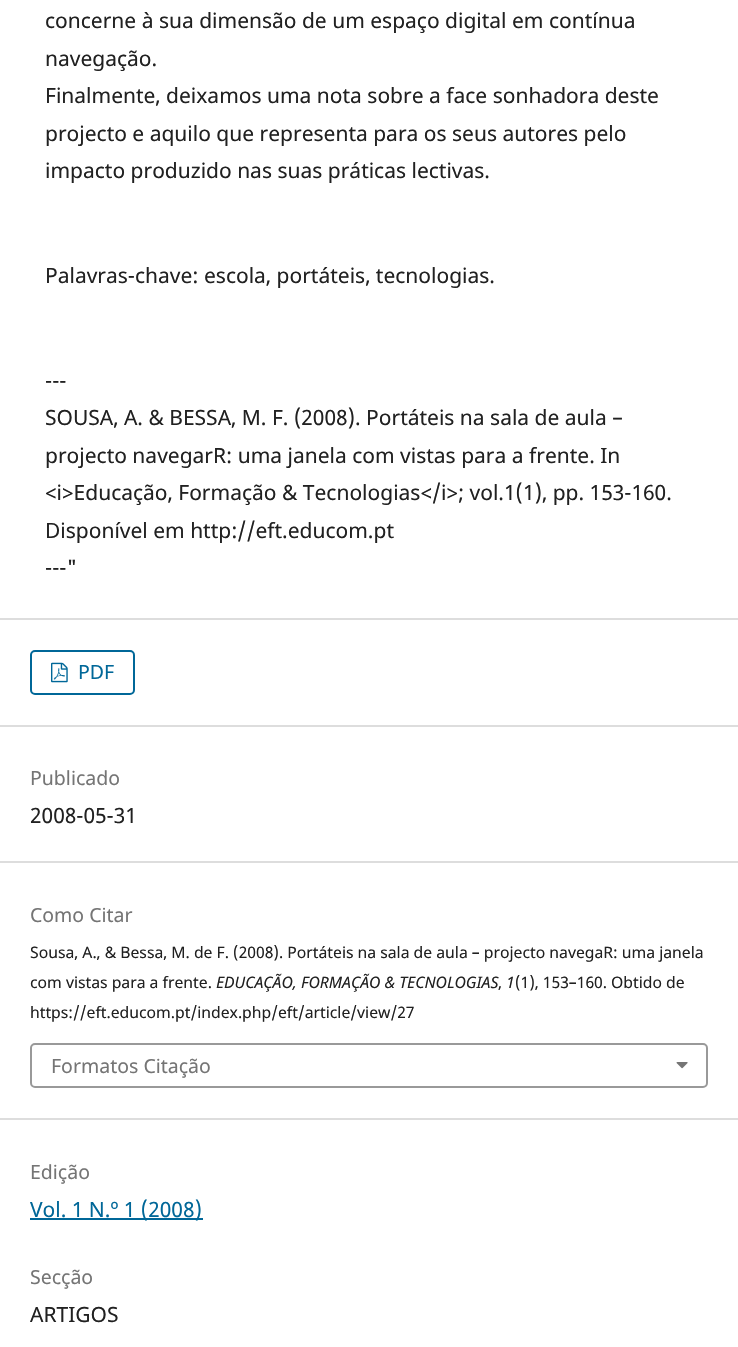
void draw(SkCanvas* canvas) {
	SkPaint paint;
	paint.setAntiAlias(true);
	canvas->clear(0xffffffff);
	SkFont f1(fontMgr->matchFamilyStyle("Noto Sans", SkFontStyle::Normal()), 21);
	f1.setSubpixel(true);
	paint.setColor(0xff212121);
	canvas->drawString("concerne à sua dimensão de um espaço digital em contínua", 45, 28, f1, paint);
	canvas->drawString("navegação.", 45, 66, f1, paint);
	canvas->drawString("Finalmente, deixamos uma nota sobre a face sonhadora deste", 45, 103, f1, paint);
	canvas->drawString("projecto e aquilo que representa para os seus autores pelo", 45, 141, f1, paint);
	canvas->drawString("impacto produzido nas suas práticas lectivas.", 45, 178, f1, paint);
	canvas->drawString("Palavras-chave: escola, portáteis, tecnologias.", 45, 283, f1, paint);
	canvas->drawString("---", 45, 388, f1, paint);
	canvas->drawString("SOUSA, A. & BESSA, M. F. (2008). Portáteis na sala de aula –", 45, 425, f1, paint);
	canvas->drawString("projecto navegarR: uma janela com vistas para a frente. In", 45, 463, f1, paint);
	canvas->drawString("<i>Educação, Formação & Tecnologias</i>; vol.1(1), pp. 153-160.", 45, 500, f1, paint);
	canvas->drawString("Disponível em http://eft.educom.pt", 45, 538, f1, paint);
	canvas->drawString("---\"", 45, 575, f1, paint);
	paint.setColor(0xffdddddd);
	canvas->drawRect(SkRect::MakeXYWH(0, 618, 738, 2), paint);
	canvas->drawRect(SkRect::MakeXYWH(0, 725, 738, 2), paint);
	paint.setStroke(true);
	paint.setStrokeWidth(2);
	paint.setColor(0xff006798);
	canvas->drawRoundRect(SkRect::MakeXYWH(31, 651, 103, 43), 4, 4, paint);
	canvas->drawImageRect(SkImages::DeferredFromEncodedData(SkData::MakeFromFileName("img1.png")), SkRect::MakeXYWH(51, 662, 17, 21), SkSamplingOptions());
	SkFont f2(fontMgr->matchFamilyStyle("Noto Sans", SkFontStyle::Normal()), 19.5);
	f2.setSubpixel(true);
	paint.setStroke(false);
	canvas->drawString("PDF", 78, 679, f2, paint);
	paint.setColor(0xffdddddd);
	canvas->drawRect(SkRect::MakeXYWH(0, 861, 738, 2), paint);
	paint.setColor(0xff757575);
	canvas->drawString("Publicado", 30, 785, f2, paint);
	paint.setColor(0xff212121);
	canvas->drawString("2008-05-31", 30, 823, f1, paint);
	paint.setColor(0xffdddddd);
	canvas->drawRect(SkRect::MakeXYWH(0, 1118, 738, 2), paint);
	paint.setColor(0xff757575);
	canvas->drawString("Como Citar", 30, 922, f2, paint);
	SkFont f3(fontMgr->matchFamilyStyle("Noto Sans", SkFontStyle::Normal()), 15.75);
	f3.setSubpixel(true);
	paint.setColor(0xff212121);
	canvas->drawString("Sousa, A., & Bessa, M. de F. (2008). Portáteis na sala de aula – projecto navegaR: uma janela", 30, 958, f3, paint);
	canvas->drawString("com vistas para a frente.", 30, 988, f3, paint);
	SkFont f4(fontMgr->matchFamilyStyle("Noto Sans", SkFontStyle::Italic()), 15.75);
	f4.setSubpixel(true);
	canvas->drawString("EDUCAÇÃO, FORMAÇÃO & TECNOLOGIAS", 216, 988, f4, paint);
	canvas->drawString(",", 498, 988, f3, paint);
	canvas->drawString("1", 506, 988, f4, paint);
	canvas->drawString("(1), 153–160. Obtido de", 515, 988, f3, paint);
	canvas->drawString("https://eft.educom.pt/index.php/eft/article/view/27", 30, 1018, f3, paint);
	paint.setStroke(true);
	paint.setColor(0xff999999);
	canvas->drawRoundRect(SkRect::MakeXYWH(31, 1044, 676, 43), 4, 4, paint);
	paint.setStroke(false);
	paint.setColor(0xff757575);
	canvas->drawString("Formatos Citação", 51, 1073, f2, paint);
	canvas->drawImageRect(SkImages::DeferredFromEncodedData(SkData::MakeFromFileName("img2.png")), SkRect::MakeXYWH(676, 1062, 12, 7), SkSamplingOptions());
	canvas->drawString("Edição", 30, 1179, f2, paint);
	paint.setColor(0xff006798);
	canvas->drawRect(SkRect::MakeXYWH(30, 1218, 173, 2), paint);
	canvas->drawString("Vol. 1 N.º 1 (2008)", 30, 1217, f1, paint);
	paint.setColor(0xff757575);
	canvas->drawString("Secção", 30, 1284, f2, paint);
	paint.setColor(0xff212121);
	canvas->drawString("ARTIGOS", 30, 1322, f1, paint);
}
